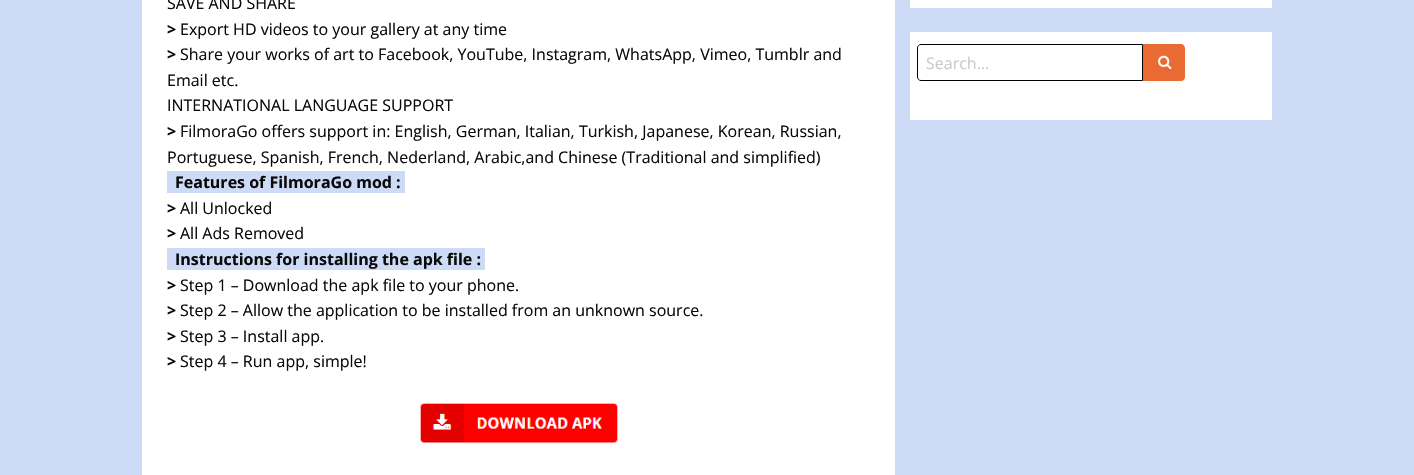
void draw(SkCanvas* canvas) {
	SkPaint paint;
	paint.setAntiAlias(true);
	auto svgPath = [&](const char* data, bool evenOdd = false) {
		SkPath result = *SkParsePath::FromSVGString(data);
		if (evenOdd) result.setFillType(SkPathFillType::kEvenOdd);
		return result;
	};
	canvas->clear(0xffcddbf7);
	paint.setColor(0xffffffff);
	canvas->drawRect(SkRect::MakeXYWH(142, 0, 753, 475), paint);
	SkFont f1(fontMgr->matchFamilyStyle("Open Sans", SkFontStyle::Normal()), 16);
	f1.setSubpixel(true);
	paint.setColor(0xff0a0a0a);
	canvas->drawString("SAVE AND SHARE", 167, 9, f1, paint);
	SkFont f2(fontMgr->matchFamilyStyle("Open Sans", SkFontStyle::Bold()), 16);
	f2.setSubpixel(true);
	canvas->drawString(">", 167, 35, f2, paint);
	canvas->drawString("Export HD videos to your gallery at any time", 180, 35, f1, paint);
	canvas->drawString(">", 167, 60, f2, paint);
	canvas->drawString("Share your works of art to Facebook, YouTube, Instagram, WhatsApp, Vimeo, Tumblr and", 180, 60, f1, paint);
	canvas->drawString("Email etc.", 167, 86, f1, paint);
	canvas->drawString("INTERNATIONAL LANGUAGE SUPPORT", 167, 111, f1, paint);
	canvas->drawString(">", 167, 137, f2, paint);
	canvas->drawString("FilmoraGo offers support in: English, German, Italian, Turkish, Japanese, Korean, Russian,", 180, 137, f1, paint);
	canvas->drawString("Portuguese, Spanish, French, Nederland, Arabic,and Chinese (Traditional and simplified)", 167, 163, f1, paint);
	paint.setColor(0xffcddbf7);
	canvas->drawRect(SkRect::MakeXYWH(167, 171, 238, 22), paint);
	paint.setColor(0xff0a0a0a);
	canvas->drawString("Features of FilmoraGo mod :", 175, 188, f2, paint);
	canvas->drawString(">", 167, 214, f2, paint);
	canvas->drawString("All Unlocked", 180, 214, f1, paint);
	canvas->drawString(">", 167, 239, f2, paint);
	canvas->drawString("All Ads Removed", 180, 239, f1, paint);
	paint.setColor(0xffcddbf7);
	canvas->drawRect(SkRect::MakeXYWH(167, 248, 318, 22), paint);
	paint.setColor(0xff0a0a0a);
	canvas->drawString("Instructions for installing the apk file :", 175, 265, f2, paint);
	canvas->drawString(">", 167, 291, f2, paint);
	canvas->drawString("Step 1 – Download the apk file to your phone.", 180, 291, f1, paint);
	canvas->drawString(">", 167, 316, f2, paint);
	canvas->drawString("Step 2 – Allow the application to be installed from an unknown source.", 180, 316, f1, paint);
	canvas->drawString(">", 167, 342, f2, paint);
	canvas->drawString("Step 3 – Install app.", 180, 342, f1, paint);
	canvas->drawString(">", 167, 367, f2, paint);
	canvas->drawString("Step 4 – Run app, simple!", 180, 367, f1, paint);
	canvas->drawImageRect(SkImages::DeferredFromEncodedData(SkData::MakeFromFileName("img1.png")), SkRect::MakeXYWH(420, 403, 198, 40), SkSamplingOptions());
	paint.setColor(0xffffffff);
	canvas->drawRect(SkRect::MakeXYWH(910, 0, 362, 8), paint);
	canvas->drawRect(SkRect::MakeXYWH(910, 32, 362, 88), paint);
	paint.setStroke(true);
	paint.setStrokeWidth(1);
	paint.setColor(0xff000000);
	canvas->drawPath(svgPath("M921 44.5H1142.5V80.5H921C919 80.5 917.5 79 917.5 77V48C917.5 46 919 44.5 921 44.5Z"), paint);
	paint.setStroke(false);
	paint.setColor(0xffcacaca);
	canvas->drawString("Search...", 926, 69, f1, paint);
	paint.setColor(0xffea6a33);
	canvas->drawPath(svgPath("M1143 44H1181C1183 44 1185 46 1185 48V77C1185 79 1183 81 1181 81H1143Z"), paint);
	canvas->drawImageRect(SkImages::DeferredFromEncodedData(SkData::MakeFromFileName("img2.png")), SkRect::MakeXYWH(1158, 55, 14, 14), SkSamplingOptions());
}
